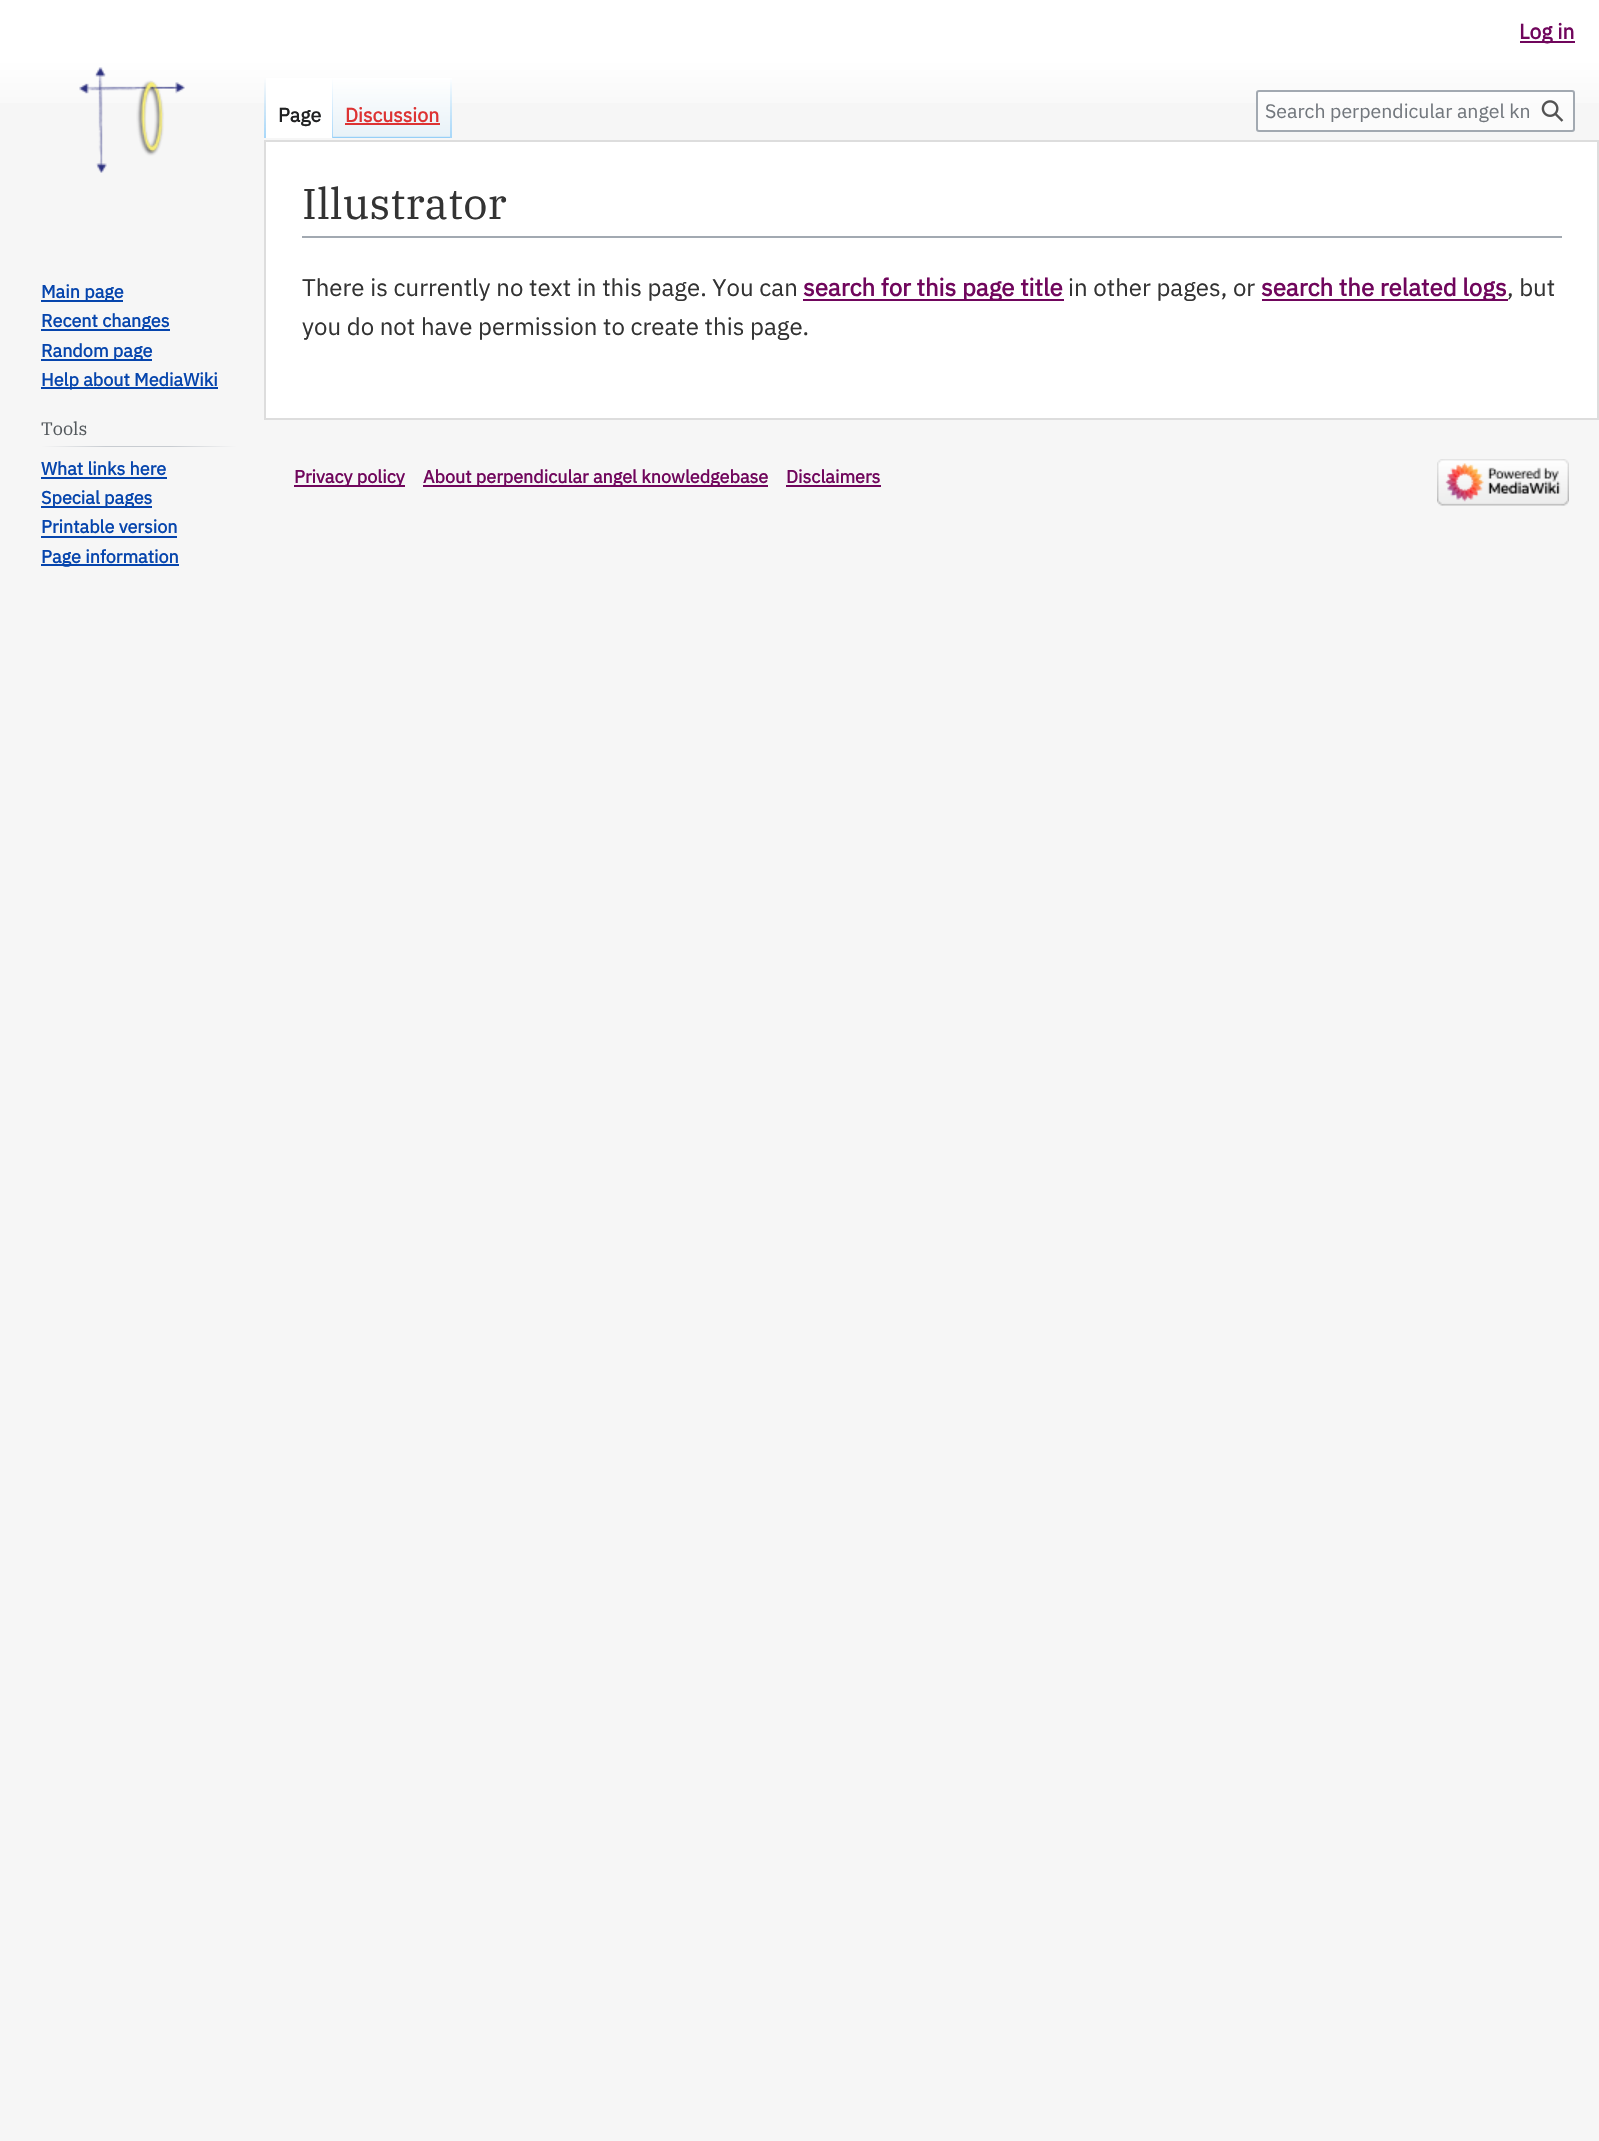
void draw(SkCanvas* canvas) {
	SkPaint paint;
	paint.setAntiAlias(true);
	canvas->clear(0xfff6f6f6);
	{
		const SkColor colors[] = {0xffffffff, 0xfff6f6f6};
		const float stops[] = {0.5, 1};
		const SkPoint ends[] = {{800, 0}, {800, 120}};
		paint.setShader(SkGradientShader::MakeLinear(ends, colors, stops, 2, SkTileMode::kClamp));
		paint.setAlpha(255);
	}
	canvas->drawRect(SkRect::MakeXYWH(0, 0, 1599, 103), paint);
	paint.setShader(nullptr);
	paint.setColor(0xff70065c);
	canvas->drawRect(SkRect::MakeXYWH(1520, 41, 55, 2), paint);
	SkFont f1(fontMgr->matchFamilyStyle("IBM Plex Sans", SkFontStyle::Bold()), 21);
	f1.setSubpixel(true);
	canvas->drawString("Log in", 1519, 39, f1, paint);
	{
		const SkColor colors[] = {0x00a7d7f9, 0xffa7d7f9};
		const float stops[] = {0, 1};
		const SkPoint ends[] = {{265, 78}, {265, 138}};
		paint.setShader(SkGradientShader::MakeLinear(ends, colors, stops, 2, SkTileMode::kClamp));
		paint.setAlpha(255);
	}
	canvas->drawRect(SkRect::MakeXYWH(264, 78, 2, 60), paint);
	paint.setShader(nullptr);
	paint.setColor(0xffffffff);
	canvas->drawRect(SkRect::MakeXYWH(266, 78, 66, 60), paint);
	{
		const SkColor colors[] = {0xffffffff, 0xffa7d7f9};
		const float stops[] = {0, 1};
		const SkPoint ends[] = {{332, 78}, {332, 138}};
		paint.setShader(SkGradientShader::MakeLinear(ends, colors, stops, 2, SkTileMode::kClamp));
		paint.setAlpha(255);
	}
	canvas->drawRect(SkRect::MakeXYWH(332, 78, 1, 60), paint);
	SkFont f2(fontMgr->matchFamilyStyle("IBM Plex Sans", SkFontStyle::Bold()), 19.5);
	f2.setSubpixel(true);
	paint.setShader(nullptr);
	paint.setColor(0xff202122);
	canvas->drawString("Page", 278, 122, f2, paint);
	{
		const SkColor colors[] = {0xff77c1f6, 0xffe8f2f8, 0xffffffff};
		const float stops[] = {0, 0.03, 1};
		const SkPoint ends[] = {{392, 138}, {392, 78}};
		paint.setShader(SkGradientShader::MakeLinear(ends, colors, stops, 3, SkTileMode::kClamp));
		paint.setAlpha(255);
	}
	canvas->drawRect(SkRect::MakeXYWH(333, 78, 119, 60), paint);
	{
		const SkColor colors[] = {0x00a7d7f9, 0xffa7d7f9};
		const float stops[] = {0, 1};
		const SkPoint ends[] = {{451, 78}, {451, 138}};
		paint.setShader(SkGradientShader::MakeLinear(ends, colors, stops, 2, SkTileMode::kClamp));
		paint.setAlpha(255);
	}
	canvas->drawRect(SkRect::MakeXYWH(450, 78, 2, 60), paint);
	paint.setShader(nullptr);
	paint.setColor(0xffdd3333);
	canvas->drawString("Discussion", 345, 122, f2, paint);
	canvas->drawRect(SkRect::MakeXYWH(345, 123, 95, 2), paint);
	paint.setColor(0x80ffffff);
	canvas->drawRoundRect(SkRect::MakeXYWH(1257, 91, 317, 40), 2, 2, paint);
	paint.setStroke(true);
	paint.setStrokeWidth(2);
	paint.setColor(0xffa2a9b1);
	canvas->drawRoundRect(SkRect::MakeXYWH(1257, 91, 317, 40), 2, 2, paint);
	SkFont f3(fontMgr->matchFamilyStyle("IBM Plex Sans", SkFontStyle::Normal()), 19.5);
	f3.setSubpixel(true);
	paint.setStroke(false);
	paint.setColor(0xff72777d);
	canvas->drawString("Search perpendicular angel kn", 1265, 118, f3, paint);
	canvas->drawImageRect(SkImages::DeferredFromEncodedData(SkData::MakeFromFileName("img1.png")), SkRect::MakeXYWH(1541, 100, 23, 22), SkSamplingOptions());
	canvas->drawImageRect(SkImages::DeferredFromEncodedData(SkData::MakeFromFileName("img2.png")), SkRect::MakeXYWH(79, 67, 106, 106), SkSamplingOptions());
	paint.setColor(0xff0645ad);
	canvas->drawRect(SkRect::MakeXYWH(41, 300, 82, 2), paint);
	SkFont f4(fontMgr->matchFamilyStyle("IBM Plex Sans", SkFontStyle::Bold()), 18);
	f4.setSubpixel(true);
	canvas->drawString("Main page", 41, 298, f4, paint);
	canvas->drawRect(SkRect::MakeXYWH(41, 329, 129, 2), paint);
	canvas->drawString("Recent changes", 41, 327, f4, paint);
	canvas->drawRect(SkRect::MakeXYWH(41, 359, 111, 2), paint);
	canvas->drawString("Random page", 41, 357, f4, paint);
	canvas->drawRect(SkRect::MakeXYWH(41, 387, 177, 2), paint);
	canvas->drawString("Help about MediaWiki", 41, 386, f4, paint);
	{
		const SkColor colors[] = {0xfff6f6f6, 0xffc8ccd1, 0xffc8ccd1, 0xfff6f6f6};
		const float stops[] = {0, 0.33, 0.66, 1};
		const SkPoint ends[] = {{41, 446}, {237, 446}};
		paint.setShader(SkGradientShader::MakeLinear(ends, colors, stops, 4, SkTileMode::kClamp));
		paint.setAlpha(255);
	}
	canvas->drawRect(SkRect::MakeXYWH(41, 446, 196, 1), paint);
	SkFont f5(fontMgr->matchFamilyStyle("IBM Plex Serif", SkFontStyle::Normal()), 18);
	f5.setSubpixel(true);
	paint.setShader(nullptr);
	paint.setColor(0xff54595d);
	canvas->drawString("Tools", 41, 435, f5, paint);
	paint.setColor(0xff0645ad);
	canvas->drawString("What links here", 41, 475, f4, paint);
	canvas->drawRect(SkRect::MakeXYWH(41, 477, 126, 2), paint);
	canvas->drawRect(SkRect::MakeXYWH(41, 506, 111, 2), paint);
	canvas->drawString("Special pages", 41, 504, f4, paint);
	canvas->drawString("Printable version", 41, 533, f4, paint);
	canvas->drawRect(SkRect::MakeXYWH(41, 536, 136, 2), paint);
	canvas->drawRect(SkRect::MakeXYWH(41, 564, 138, 2), paint);
	canvas->drawString("Page information", 41, 563, f4, paint);
	paint.setColor(0xffffffff);
	canvas->drawRect(SkRect::MakeXYWH(265, 141, 1333, 278), paint);
	paint.setStroke(true);
	paint.setColor(0xffdddddd);
	canvas->drawRect(SkRect::MakeXYWH(265, 141, 1333, 278), paint);
	paint.setStroke(false);
	paint.setColor(0xffa2a9b1);
	canvas->drawRect(SkRect::MakeXYWH(302, 236, 1260, 2), paint);
	SkFont f6(fontMgr->matchFamilyStyle("IBM Plex Serif", SkFontStyle::Normal()), 43);
	f6.setSubpixel(true);
	paint.setColor(0xff333333);
	canvas->drawString("Illustrator", 302, 219, f6, paint);
	SkFont f7(fontMgr->matchFamilyStyle("IBM Plex Sans", SkFontStyle::Normal()), 24);
	f7.setSubpixel(true);
	canvas->drawString("There is currently no text in this page. You can", 302, 296, f7, paint);
	paint.setColor(0xff70065c);
	canvas->drawRect(SkRect::MakeXYWH(803, 299, 261, 2), paint);
	SkFont f8(fontMgr->matchFamilyStyle("IBM Plex Sans", SkFontStyle::Bold()), 24);
	f8.setSubpixel(true);
	canvas->drawString("search for this page title", 803, 296, f8, paint);
	paint.setColor(0xff333333);
	canvas->drawString("in other pages, or", 1068, 296, f7, paint);
	paint.setColor(0xff70065c);
	canvas->drawRect(SkRect::MakeXYWH(1262, 299, 246, 2), paint);
	canvas->drawString("search the related logs", 1261, 296, f8, paint);
	paint.setColor(0xff333333);
	canvas->drawString(", but", 1507, 296, f7, paint);
	canvas->drawString("you do not have permission to create this page.", 302, 335, f7, paint);
	paint.setColor(0xff70065c);
	canvas->drawRect(SkRect::MakeXYWH(294, 485, 111, 2), paint);
	canvas->drawString("Privacy policy", 294, 483, f4, paint);
	canvas->drawRect(SkRect::MakeXYWH(423, 485, 345, 2), paint);
	canvas->drawString("About perpendicular angel knowledgebase", 423, 483, f4, paint);
	canvas->drawString("Disclaimers", 786, 483, f4, paint);
	canvas->drawRect(SkRect::MakeXYWH(786, 485, 95, 2), paint);
	canvas->drawImageRect(SkImages::DeferredFromEncodedData(SkData::MakeFromFileName("img3.png")), SkRect::MakeXYWH(1437, 459, 132, 47), SkSamplingOptions());
}
